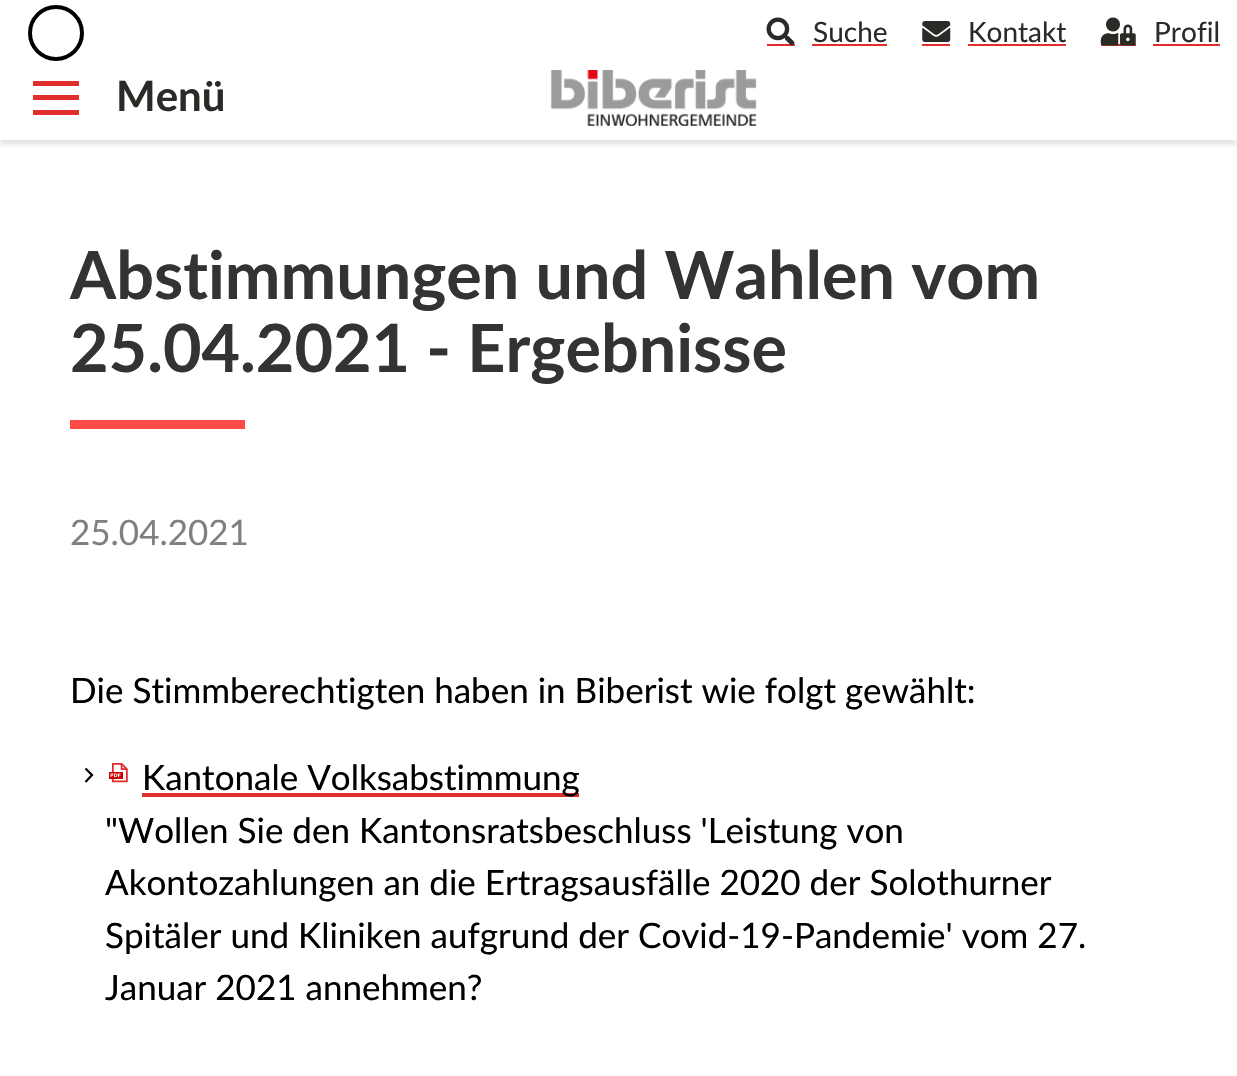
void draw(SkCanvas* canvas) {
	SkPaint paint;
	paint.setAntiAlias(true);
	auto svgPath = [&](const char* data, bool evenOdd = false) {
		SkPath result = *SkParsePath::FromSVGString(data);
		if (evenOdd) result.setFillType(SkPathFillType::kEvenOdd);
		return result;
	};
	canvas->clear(0xffffffff);
	canvas->save();
	canvas->clipRect(SkRect::MakeXYWH(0, 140, 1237, 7));
	paint.setColor(0x1a000000);
	paint.setMaskFilter(SkMaskFilter::MakeBlur(kNormal_SkBlurStyle, 2.5));
	canvas->drawRect(SkRect::MakeXYWH(0, 61, 1237, 84), paint);
	paint.setMaskFilter(nullptr);
	canvas->restore();
	paint.setStroke(true);
	paint.setStrokeWidth(4);
	paint.setColor(0xff000000);
	canvas->drawCircle(56, 33, 26, paint);
	paint.setStroke(false);
	paint.setColor(0xffe02e2c);
	canvas->drawRect(SkRect::MakeXYWH(767, 44, 28, 2), paint);
	canvas->drawImageRect(SkImages::DeferredFromEncodedData(SkData::MakeFromFileName("img1.png")), SkRect::MakeXYWH(766, 17, 29, 29), SkSamplingOptions());
	SkFont f1(fontMgr->matchFamilyStyle("Lato", SkFontStyle::Normal()), 28);
	f1.setSubpixel(true);
	paint.setColor(0xff292b27);
	canvas->drawString("Suche", 813, 42, f1, paint);
	paint.setColor(0xffe02e2c);
	canvas->drawRect(SkRect::MakeXYWH(812, 44, 75, 2), paint);
	canvas->drawImageRect(SkImages::DeferredFromEncodedData(SkData::MakeFromFileName("img2.png")), SkRect::MakeXYWH(922, 21, 29, 21), SkSamplingOptions());
	paint.setColor(0xff292b27);
	canvas->drawString("Kontakt", 968, 42, f1, paint);
	paint.setColor(0xffe02e2c);
	canvas->drawRect(SkRect::MakeXYWH(968, 44, 98, 2), paint);
	canvas->drawRect(SkRect::MakeXYWH(922, 44, 28, 2), paint);
	canvas->drawRect(SkRect::MakeXYWH(1101, 44, 35, 2), paint);
	canvas->drawImageRect(SkImages::DeferredFromEncodedData(SkData::MakeFromFileName("img3.png")), SkRect::MakeXYWH(1100, 17, 36, 29), SkSamplingOptions());
	paint.setColor(0xff292b27);
	canvas->drawString("Profil", 1154, 42, f1, paint);
	paint.setColor(0xffe02e2c);
	canvas->drawRect(SkRect::MakeXYWH(1153, 44, 67, 2), paint);
	canvas->drawRect(SkRect::MakeXYWH(33, 81, 46, 5), paint);
	canvas->drawRect(SkRect::MakeXYWH(33, 95, 46, 5), paint);
	canvas->drawRect(SkRect::MakeXYWH(33, 110, 46, 5), paint);
	SkFont f2(fontMgr->matchFamilyStyle("Lato", SkFontStyle::Bold()), 42);
	f2.setSubpixel(true);
	paint.setColor(0xff292b27);
	canvas->drawString("Menü", 116, 111, f2, paint);
	canvas->drawImageRect(SkImages::DeferredFromEncodedData(SkData::MakeFromFileName("img4.png")), SkRect::MakeXYWH(550, 70, 207, 56), SkSamplingOptions());
	SkFont f3(fontMgr->matchFamilyStyle("Lato", SkFontStyle::Bold()), 66.5);
	f3.setSubpixel(true);
	paint.setColor(0xff333333);
	canvas->drawString("Abstimmungen und Wahlen vom", 70, 299, f3, paint);
	canvas->drawString("25.04.2021 - Ergebnisse", 70, 372, f3, paint);
	paint.setColor(0xffff4a47);
	canvas->drawRect(SkRect::MakeXYWH(70, 420, 175, 9), paint);
	SkFont f4(fontMgr->matchFamilyStyle("Lato", SkFontStyle::Normal()), 35);
	f4.setSubpixel(true);
	paint.setColor(0xff808080);
	canvas->drawString("25.04.2021", 70, 545, f4, paint);
	paint.setColor(0xff000000);
	canvas->drawString("Die Stimmberechtigten haben in Biberist wie folgt gewählt:", 70, 703, f4, paint);
	paint.setStroke(true);
	paint.setStrokeWidth(2.2);
	canvas->drawPath(svgPath("M85.5 768.5L92 775L85.5 782"), paint);
	canvas->drawImageRect(SkImages::DeferredFromEncodedData(SkData::MakeFromFileName("img5.png")), SkRect::MakeXYWH(109, 763, 19, 20), SkSamplingOptions());
	paint.setStroke(false);
	paint.setColor(0xffe02e2c);
	canvas->drawRect(SkRect::MakeXYWH(142, 793, 437, 4), paint);
	paint.setColor(0xff000000);
	canvas->drawString("Kantonale Volksabstimmung", 142, 790, f4, paint);
	canvas->drawString("\"Wollen Sie den Kantonsratsbeschluss 'Leistung von", 105, 843, f4, paint);
	canvas->drawString("Akontozahlungen an die Ertragsausfälle 2020 der Solothurner", 105, 895, f4, paint);
	canvas->drawString("Spitäler und Kliniken aufgrund der Covid-19-Pandemie' vom 27.", 105, 948, f4, paint);
	canvas->drawString("Januar 2021 annehmen?", 105, 1000, f4, paint);
}
